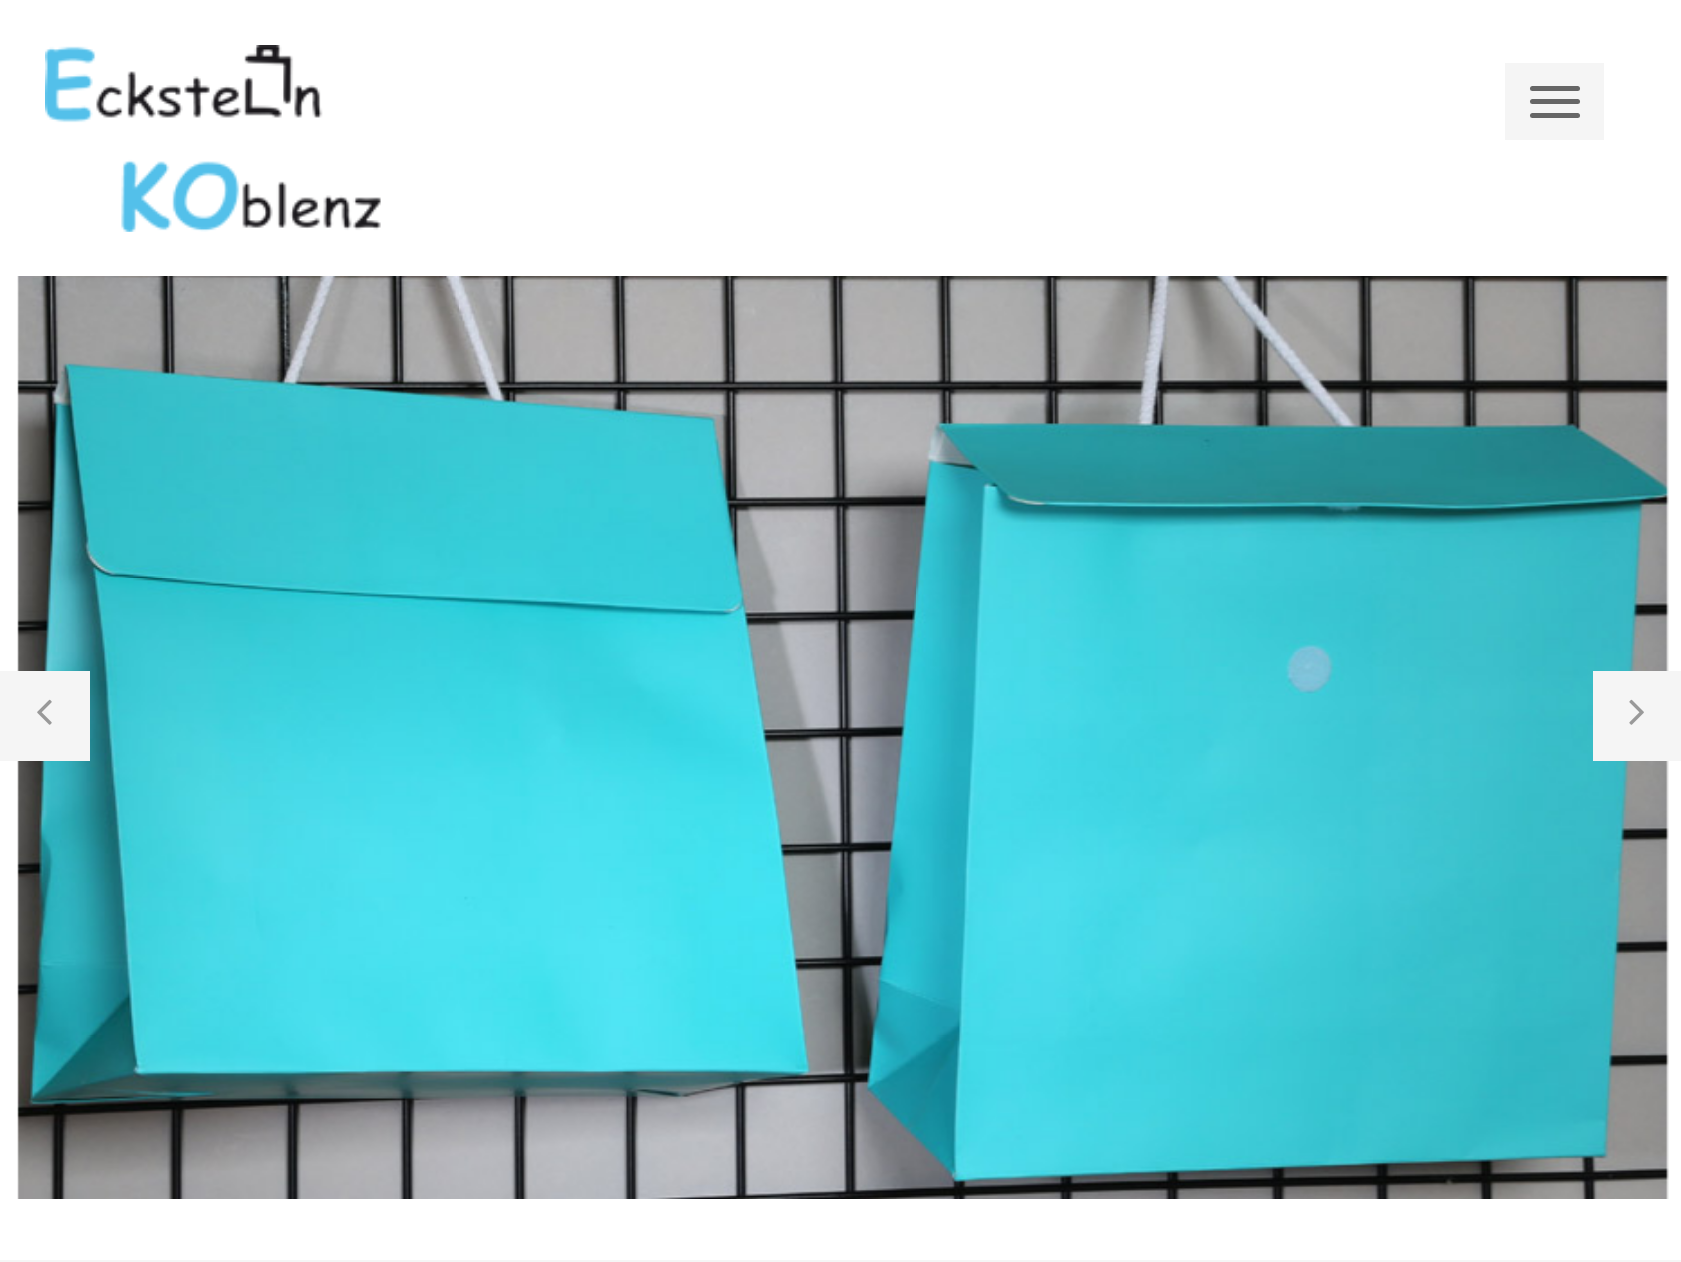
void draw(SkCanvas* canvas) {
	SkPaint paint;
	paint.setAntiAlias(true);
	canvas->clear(0xffffffff);
	canvas->drawImageRect(SkImages::DeferredFromEncodedData(SkData::MakeFromFileName("img1.png")), SkRect::MakeXYWH(45, 45, 336, 187), SkSamplingOptions());
	paint.setColor(0xfff5f5f5);
	canvas->drawRect(SkRect::MakeXYWH(1505, 63, 99, 77), paint);
	paint.setColor(0xff666666);
	canvas->drawRoundRect(SkRect::MakeXYWH(1530, 86, 50, 5), 2.5, 2.5, paint);
	canvas->drawRoundRect(SkRect::MakeXYWH(1530, 99, 50, 5), 2.5, 2.5, paint);
	canvas->drawRoundRect(SkRect::MakeXYWH(1530, 113, 50, 5), 2.5, 2.5, paint);
	canvas->drawImageRect(SkImages::DeferredFromEncodedData(SkData::MakeFromFileName("img2.png")), SkRect::MakeXYWH(17, 276, 1652, 923), SkSamplingOptions());
	paint.setColor(0xfff5f5f5);
	canvas->drawRect(SkRect::MakeXYWH(0, 671, 90, 90), paint);
	canvas->drawImageRect(SkImages::DeferredFromEncodedData(SkData::MakeFromFileName("img3.png")), SkRect::MakeXYWH(37, 699, 15, 26), SkSamplingOptions());
	canvas->drawRect(SkRect::MakeXYWH(1593, 671, 88, 90), paint);
	canvas->drawImageRect(SkImages::DeferredFromEncodedData(SkData::MakeFromFileName("img4.png")), SkRect::MakeXYWH(1629, 699, 15, 26), SkSamplingOptions());
	canvas->drawRect(SkRect::MakeXYWH(0, 1260, 1681, 2), paint);
}
